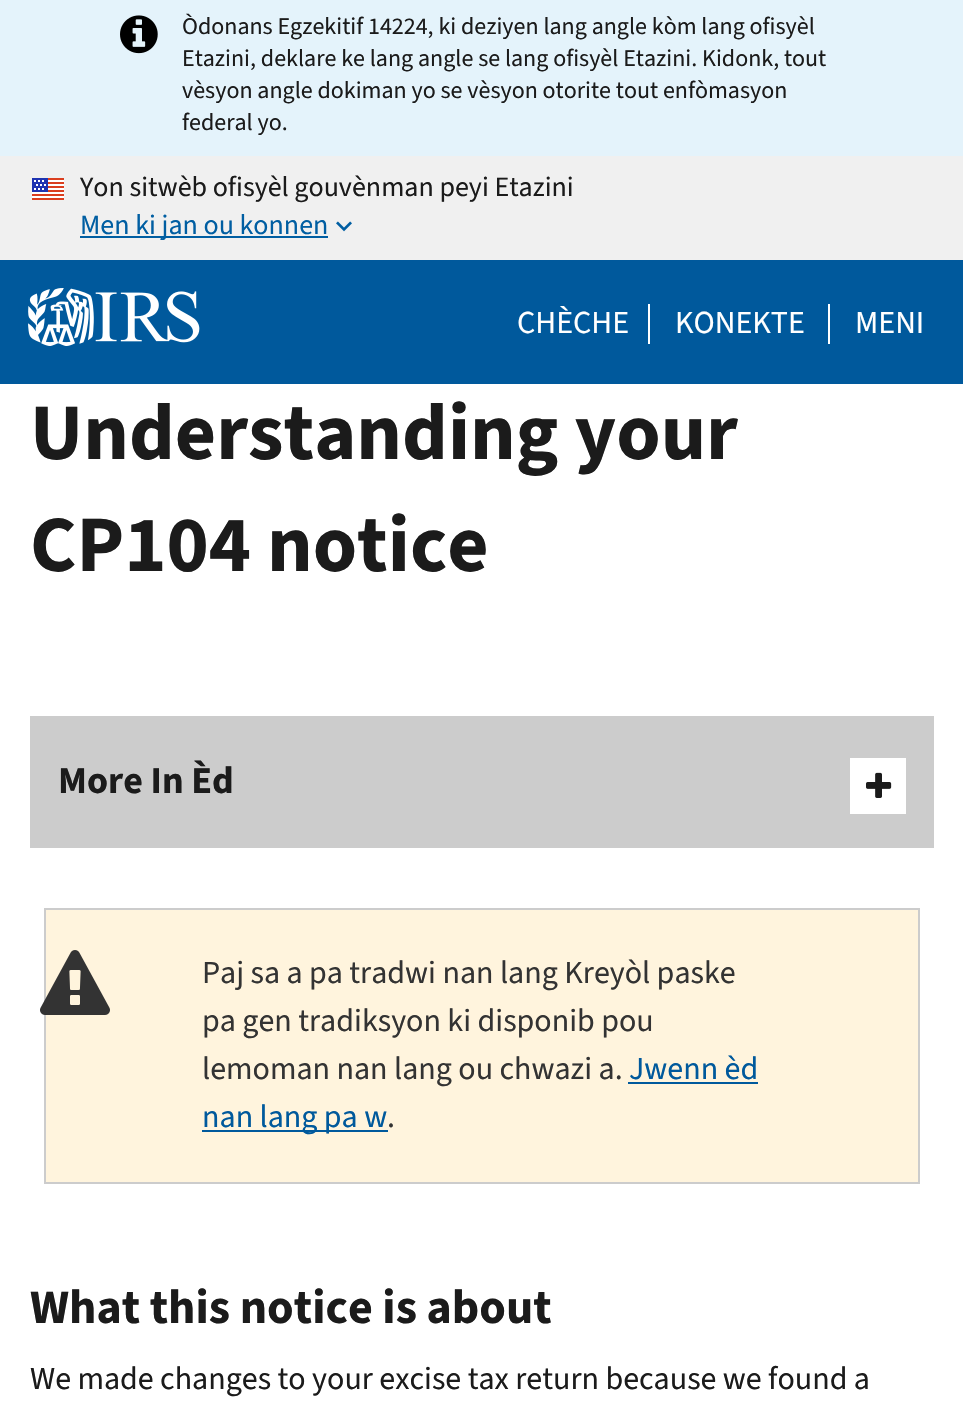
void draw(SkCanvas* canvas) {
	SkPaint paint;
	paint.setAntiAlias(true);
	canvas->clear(0xffffffff);
	paint.setColor(0xfff0f0f0);
	canvas->drawRect(SkRect::MakeXYWH(0, 156, 963, 104), paint);
	paint.setColor(0xffe4f3fb);
	canvas->drawRect(SkRect::MakeXYWH(0, 0, 963, 156), paint);
	canvas->drawImageRect(SkImages::DeferredFromEncodedData(SkData::MakeFromFileName("img1.png")), SkRect::MakeXYWH(120, 15, 38, 39), SkSamplingOptions());
	SkFont f1(fontMgr->matchFamilyStyle("Source Sans 3", SkFontStyle::Normal()), 24);
	f1.setSubpixel(true);
	paint.setColor(0xff1b1b1b);
	canvas->drawString("Òdonans Egzekitif 14224, ki deziyen lang angle kòm lang ofisyèl", 182, 34, f1, paint);
	canvas->drawString("Etazini, deklare ke lang angle se lang ofisyèl Etazini. Kidonk, tout", 182, 66, f1, paint);
	canvas->drawString("vèsyon angle dokiman yo se vèsyon otorite tout enfòmasyon", 182, 98, f1, paint);
	canvas->drawString("federal yo.", 182, 130, f1, paint);
	canvas->drawImageRect(SkImages::DeferredFromEncodedData(SkData::MakeFromFileName("img2.png")), SkRect::MakeXYWH(32, 178, 32, 22), SkSamplingOptions());
	SkFont f2(fontMgr->matchFamilyStyle("Source Sans 3", SkFontStyle::Normal()), 28);
	f2.setSubpixel(true);
	canvas->drawString("Yon sitwèb ofisyèl gouvènman peyi Etazini", 80, 196, f2, paint);
	paint.setColor(0xff005ea2);
	canvas->drawRect(SkRect::MakeXYWH(80, 236, 248, 2), paint);
	canvas->drawString("Men ki jan ou konnen", 80, 234, f2, paint);
	canvas->drawImageRect(SkImages::DeferredFromEncodedData(SkData::MakeFromFileName("img3.png")), SkRect::MakeXYWH(336, 221, 16, 11), SkSamplingOptions());
	paint.setColor(0xff00599c);
	canvas->drawRect(SkRect::MakeXYWH(0, 260, 963, 124), paint);
	canvas->drawImageRect(SkImages::DeferredFromEncodedData(SkData::MakeFromFileName("img4.png")), SkRect::MakeXYWH(28, 288, 172, 58), SkSamplingOptions());
	paint.setColor(0xffffffff);
	canvas->drawRect(SkRect::MakeXYWH(648, 304, 2, 40), paint);
	SkFont f3(fontMgr->matchFamilyStyle("Source Sans 3", SkFontStyle::Normal()), 32);
	f3.setSubpixel(true);
	canvas->drawString("CHÈCHE", 517, 333, f3, paint);
	canvas->drawRect(SkRect::MakeXYWH(828, 304, 2, 40), paint);
	canvas->drawString("KONEKTE", 675, 333, f3, paint);
	canvas->drawString("MENI", 855, 333, f3, paint);
	SkFont f4(fontMgr->matchFamilyStyle("Source Sans 3", SkFontStyle::Bold()), 80);
	f4.setSubpixel(true);
	paint.setColor(0xff1b1b1b);
	canvas->drawString("Understanding your", 30, 459, f4, paint);
	canvas->drawString("CP104 notice", 30, 571, f4, paint);
	paint.setColor(0xffcccccc);
	canvas->drawRect(SkRect::MakeXYWH(30, 716, 904, 132), paint);
	SkFont f5(fontMgr->matchFamilyStyle("Source Sans 3", SkFontStyle::Bold()), 38);
	f5.setSubpixel(true);
	paint.setColor(0xff1b1b1b);
	canvas->drawString("More In Èd", 58, 793, f5, paint);
	paint.setColor(0xffffffff);
	canvas->drawRect(SkRect::MakeXYWH(850, 758, 56, 56), paint);
	canvas->drawImageRect(SkImages::DeferredFromEncodedData(SkData::MakeFromFileName("img5.png")), SkRect::MakeXYWH(866, 772, 26, 26), SkSamplingOptions());
	paint.setColor(0xfffff4dd);
	canvas->drawRect(SkRect::MakeXYWH(45, 909, 874, 274), paint);
	paint.setStroke(true);
	paint.setStrokeWidth(2);
	paint.setColor(0xffcccccc);
	canvas->drawRect(SkRect::MakeXYWH(45, 909, 874, 274), paint);
	canvas->drawImageRect(SkImages::DeferredFromEncodedData(SkData::MakeFromFileName("img6.png")), SkRect::MakeXYWH(40, 950, 70, 65), SkSamplingOptions());
	paint.setStroke(false);
	paint.setColor(0xff333333);
	canvas->drawString("Paj sa a pa tradwi nan lang Kreyòl paske", 202, 983, f3, paint);
	canvas->drawString("pa gen tradiksyon ki disponib pou", 202, 1031, f3, paint);
	canvas->drawString("lemoman nan lang ou chwazi a.", 202, 1079, f3, paint);
	paint.setColor(0xff00599c);
	canvas->drawString("Jwenn èd", 629, 1079, f3, paint);
	canvas->drawRect(SkRect::MakeXYWH(628, 1082, 130, 2), paint);
	canvas->drawRect(SkRect::MakeXYWH(202, 1130, 186, 2), paint);
	canvas->drawString("nan lang pa w", 202, 1127, f3, paint);
	paint.setColor(0xff333333);
	canvas->drawString(".", 387, 1127, f3, paint);
	SkFont f6(fontMgr->matchFamilyStyle("Source Sans 3", SkFontStyle::Bold()), 48);
	f6.setSubpixel(true);
	paint.setColor(0xff1b1b1b);
	canvas->drawString("What this notice is about", 30, 1323, f6, paint);
	canvas->drawString("We made changes to your excise tax return because we found a", 30, 1389, f3, paint);
}
